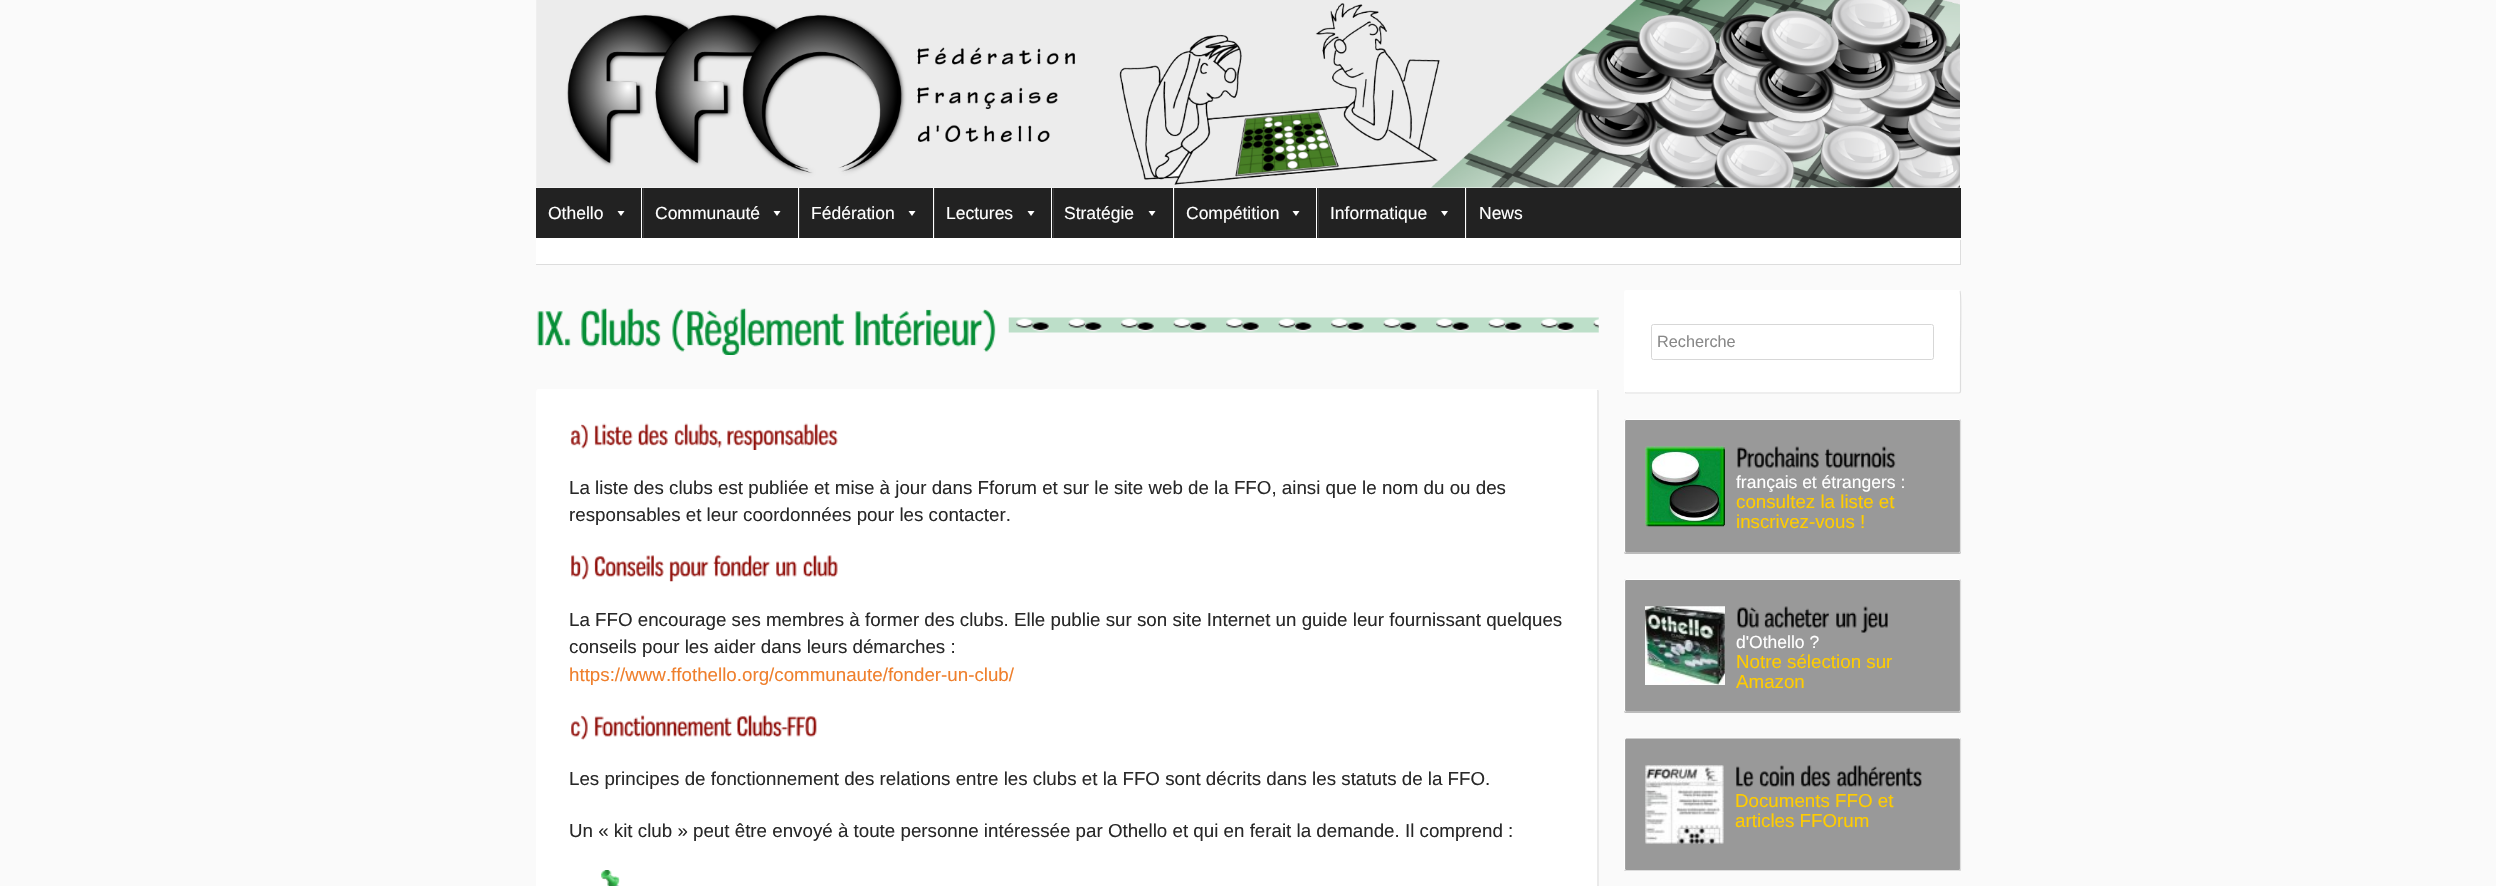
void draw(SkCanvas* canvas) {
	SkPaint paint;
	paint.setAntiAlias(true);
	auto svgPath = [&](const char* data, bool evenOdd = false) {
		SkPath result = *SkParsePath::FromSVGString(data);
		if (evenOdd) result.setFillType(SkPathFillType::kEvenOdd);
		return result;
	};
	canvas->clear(0xfffafafa);
	canvas->drawImageRect(SkImages::DeferredFromEncodedData(SkData::MakeFromFileName("img1.png")), SkRect::MakeXYWH(536, 0, 1424, 188), SkSamplingOptions());
	paint.setColor(0xff222222);
	canvas->drawRect(SkRect::MakeXYWH(536, 188, 1425, 50), paint);
	SkFont f1(fontMgr->matchFamilyStyle("Liberation Sans", SkFontStyle::Normal()), 17.5);
	f1.setSubpixel(true);
	paint.setColor(0xffffffff);
	canvas->drawString("Othello", 548, 219, f1, paint);
	canvas->drawPath(svgPath("M624.5 211L621 216L617.5 211Z"), paint);
	paint.setColor(0xff383838);
	canvas->drawRect(SkRect::MakeXYWH(643, 188, 1, 50), paint);
	paint.setColor(0xffffffff);
	canvas->drawRect(SkRect::MakeXYWH(641, 188, 1, 50), paint);
	canvas->drawString("Communauté", 655, 219, f1, paint);
	canvas->drawPath(svgPath("M780.5 211L777 216L773.5 211Z"), paint);
	paint.setColor(0xff383838);
	canvas->drawRect(SkRect::MakeXYWH(799, 188, 1, 50), paint);
	paint.setColor(0xffffffff);
	canvas->drawRect(SkRect::MakeXYWH(798, 188, 1, 50), paint);
	canvas->drawString("Fédération", 811, 219, f1, paint);
	canvas->drawPath(svgPath("M915.5 211L912 216L908.5 211Z"), paint);
	paint.setColor(0xff383838);
	canvas->drawRect(SkRect::MakeXYWH(934, 188, 1, 50), paint);
	paint.setColor(0xffffffff);
	canvas->drawRect(SkRect::MakeXYWH(933, 188, 1, 50), paint);
	canvas->drawString("Lectures", 946, 219, f1, paint);
	canvas->drawPath(svgPath("M1034.5 211L1031 216L1027.5 211Z"), paint);
	paint.setColor(0xff383838);
	canvas->drawRect(SkRect::MakeXYWH(1053, 188, 1, 50), paint);
	paint.setColor(0xffffffff);
	canvas->drawRect(SkRect::MakeXYWH(1051, 188, 1, 50), paint);
	canvas->drawString("Stratégie", 1064, 219, f1, paint);
	canvas->drawPath(svgPath("M1155.5 211L1152 216L1148.5 211Z"), paint);
	paint.setColor(0xff383838);
	canvas->drawRect(SkRect::MakeXYWH(1174, 188, 1, 50), paint);
	paint.setColor(0xffffffff);
	canvas->drawRect(SkRect::MakeXYWH(1173, 188, 1, 50), paint);
	canvas->drawString("Compétition", 1186, 219, f1, paint);
	canvas->drawPath(svgPath("M1299.5 211L1296 216L1292.5 211Z"), paint);
	paint.setColor(0xff383838);
	canvas->drawRect(SkRect::MakeXYWH(1318, 188, 1, 50), paint);
	paint.setColor(0xffffffff);
	canvas->drawRect(SkRect::MakeXYWH(1316, 188, 1, 50), paint);
	canvas->drawString("Informatique", 1330, 219, f1, paint);
	canvas->drawPath(svgPath("M1448 211L1444.5 216L1441 211Z"), paint);
	paint.setColor(0xff383838);
	canvas->drawRect(SkRect::MakeXYWH(1466, 188, 1, 50), paint);
	paint.setColor(0xffffffff);
	canvas->drawRect(SkRect::MakeXYWH(1465, 188, 1, 50), paint);
	canvas->drawString("News", 1479, 219, f1, paint);
	canvas->drawRect(SkRect::MakeXYWH(536, 238, 1425, 2), paint);
	canvas->drawRect(SkRect::MakeXYWH(536, 240, 1424, 24), paint);
	paint.setColor(0xffdddddd);
	canvas->drawRect(SkRect::MakeXYWH(1960, 240, 1, 25), paint);
	canvas->drawRect(SkRect::MakeXYWH(536, 264, 1425, 1), paint);
	canvas->drawImageRect(SkImages::DeferredFromEncodedData(SkData::MakeFromFileName("img2.png")), SkRect::MakeXYWH(537, 311, 34, 36), SkSamplingOptions());
	canvas->drawImageRect(SkImages::DeferredFromEncodedData(SkData::MakeFromFileName("img3.png")), SkRect::MakeXYWH(581, 308, 80, 39), SkSamplingOptions());
	canvas->drawImageRect(SkImages::DeferredFromEncodedData(SkData::MakeFromFileName("img4.png")), SkRect::MakeXYWH(672, 308, 172, 47), SkSamplingOptions());
	canvas->drawImageRect(SkImages::DeferredFromEncodedData(SkData::MakeFromFileName("img5.png")), SkRect::MakeXYWH(855, 309, 141, 43), SkSamplingOptions());
	canvas->drawImageRect(SkImages::DeferredFromEncodedData(SkData::MakeFromFileName("img6.png")), SkRect::MakeXYWH(1008, 317, 591, 16), SkSamplingOptions());
	paint.setColor(0xffffffff);
	canvas->drawRoundRect(SkRect::MakeXYWH(536, 389, 1063, 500), 2.5, 2.5, paint);
	paint.setStroke(true);
	paint.setStrokeWidth(1.2);
	paint.setColor(0xffdddddd);
	canvas->drawPath(svgPath("M1597.5 390L1598 391V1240L1597.5 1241.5L1596 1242H539L537.5 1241.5"), paint);
	paint.setColor(0xffffffff);
	canvas->drawPath(svgPath("M537.5 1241.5L537 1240V391L537.5 390L539 389.5H1596L1597.5 390"), paint);
	canvas->drawImageRect(SkImages::DeferredFromEncodedData(SkData::MakeFromFileName("img7.png")), SkRect::MakeXYWH(570, 424, 18, 25), SkSamplingOptions());
	canvas->drawImageRect(SkImages::DeferredFromEncodedData(SkData::MakeFromFileName("img8.png")), SkRect::MakeXYWH(594, 423, 39, 23), SkSamplingOptions());
	canvas->drawImageRect(SkImages::DeferredFromEncodedData(SkData::MakeFromFileName("img9.png")), SkRect::MakeXYWH(638, 423, 30, 23), SkSamplingOptions());
	canvas->drawImageRect(SkImages::DeferredFromEncodedData(SkData::MakeFromFileName("img10.png")), SkRect::MakeXYWH(674, 423, 48, 25), SkSamplingOptions());
	canvas->drawImageRect(SkImages::DeferredFromEncodedData(SkData::MakeFromFileName("img11.png")), SkRect::MakeXYWH(727, 423, 111, 27), SkSamplingOptions());
	SkFont f2(fontMgr->matchFamilyStyle("Liberation Sans", SkFontStyle::Normal()), 18.75);
	f2.setSubpixel(true);
	paint.setStroke(false);
	paint.setColor(0xff282828);
	canvas->drawString("La liste des clubs est publiée et mise à jour dans Fforum et sur le site web de la FFO, ainsi que le nom du ou des", 569, 494, f2, paint);
	canvas->drawString("responsables et leur coordonnées pour les contacter.", 569, 521, f2, paint);
	canvas->drawImageRect(SkImages::DeferredFromEncodedData(SkData::MakeFromFileName("img12.png")), SkRect::MakeXYWH(571, 555, 18, 25), SkSamplingOptions());
	canvas->drawImageRect(SkImages::DeferredFromEncodedData(SkData::MakeFromFileName("img13.png")), SkRect::MakeXYWH(594, 555, 70, 22), SkSamplingOptions());
	canvas->drawImageRect(SkImages::DeferredFromEncodedData(SkData::MakeFromFileName("img14.png")), SkRect::MakeXYWH(669, 561, 40, 21), SkSamplingOptions());
	canvas->drawImageRect(SkImages::DeferredFromEncodedData(SkData::MakeFromFileName("img15.png")), SkRect::MakeXYWH(713, 554, 58, 23), SkSamplingOptions());
	canvas->drawImageRect(SkImages::DeferredFromEncodedData(SkData::MakeFromFileName("img16.png")), SkRect::MakeXYWH(776, 561, 21, 16), SkSamplingOptions());
	canvas->drawImageRect(SkImages::DeferredFromEncodedData(SkData::MakeFromFileName("img17.png")), SkRect::MakeXYWH(803, 555, 35, 22), SkSamplingOptions());
	canvas->drawString("La FFO encourage ses membres à former des clubs. Elle publie sur son site Internet un guide leur fournissant quelques", 569, 626, f2, paint);
	canvas->drawString("conseils pour les aider dans leurs démarches :", 569, 653, f2, paint);
	paint.setColor(0xffef7f2c);
	canvas->drawString("https://www.ffothello.org/communaute/fonder-un-club/", 569, 681, f2, paint);
	canvas->drawImageRect(SkImages::DeferredFromEncodedData(SkData::MakeFromFileName("img18.png")), SkRect::MakeXYWH(571, 715, 17, 25), SkSamplingOptions());
	canvas->drawImageRect(SkImages::DeferredFromEncodedData(SkData::MakeFromFileName("img19.png")), SkRect::MakeXYWH(594, 715, 138, 22), SkSamplingOptions());
	canvas->drawImageRect(SkImages::DeferredFromEncodedData(SkData::MakeFromFileName("img20.png")), SkRect::MakeXYWH(736, 714, 81, 23), SkSamplingOptions());
	paint.setColor(0xff282828);
	canvas->drawString("Les principes de fonctionnement des relations entre les clubs et la FFO sont décrits dans les statuts de la FFO.", 569, 785, f2, paint);
	canvas->drawString("Un « kit club » peut être envoyé à toute personne intéressée par Othello et qui en ferait la demande. Il comprend :", 569, 837, f2, paint);
	canvas->drawImageRect(SkImages::DeferredFromEncodedData(SkData::MakeFromFileName("img21.png")), SkRect::MakeXYWH(601, 870, 19, 16), SkSamplingOptions());
	paint.setColor(0xffffffff);
	canvas->drawRoundRect(SkRect::MakeXYWH(1624, 290, 337, 104), 2.5, 2.5, paint);
	paint.setStroke(true);
	paint.setColor(0xffdddddd);
	canvas->drawPath(svgPath("M1960 291C1961.5 293 1960.5 336.5 1960.5 342V391C1960.5 392.5 1960 393 1959 393H1626L1625 392.5"), paint);
	paint.setColor(0xffffffff);
	canvas->drawPath(svgPath("M1625 392.5C1623.5 391 1624.5 347 1624.5 342V292.5C1624.5 291.5 1625 290.5 1626 290.5H1959L1960 291"), paint);
	paint.setStrokeWidth(1);
	paint.setColor(0xffd7d7d7);
	canvas->drawRoundRect(SkRect::MakeXYWH(1651.5, 324.5, 282, 35), 2, 2, paint);
	SkFont f3(fontMgr->matchFamilyStyle("Liberation Sans", SkFontStyle::Normal()), 16.25);
	f3.setSubpixel(true);
	paint.setStroke(false);
	paint.setColor(0xff888888);
	canvas->drawString("Recherche", 1657, 347, f3, paint);
	paint.setColor(0xff999999);
	canvas->drawRoundRect(SkRect::MakeXYWH(1624, 419, 337, 135), 2.5, 2.5, paint);
	paint.setStroke(true);
	paint.setStrokeWidth(1.2);
	paint.setColor(0xffdddddd);
	canvas->drawPath(svgPath("M1960 420L1960.5 421V551L1960 552.5L1959 553H1626L1625 552.5"), paint);
	paint.setColor(0xffffffff);
	canvas->drawPath(svgPath("M1625 552.5L1624.5 551V421L1625 420L1626 419.5H1959L1960 420"), paint);
	canvas->drawImageRect(SkImages::DeferredFromEncodedData(SkData::MakeFromFileName("img22.png")), SkRect::MakeXYWH(1645, 446, 80, 81), SkSamplingOptions());
	canvas->drawImageRect(SkImages::DeferredFromEncodedData(SkData::MakeFromFileName("img23.png")), SkRect::MakeXYWH(1737, 446, 82, 22), SkSamplingOptions());
	canvas->drawImageRect(SkImages::DeferredFromEncodedData(SkData::MakeFromFileName("img24.png")), SkRect::MakeXYWH(1824, 446, 72, 22), SkSamplingOptions());
	paint.setStroke(false);
	canvas->drawString("français et étrangers :", 1736, 488, f1, paint);
	paint.setColor(0xffffcc00);
	canvas->drawString("consultez la liste et", 1736, 508, f2, paint);
	canvas->drawString("inscrivez-vous !", 1736, 528, f2, paint);
	paint.setColor(0xff999999);
	canvas->drawRoundRect(SkRect::MakeXYWH(1624, 579, 337, 134), 2.5, 2.5, paint);
	paint.setStroke(true);
	paint.setColor(0xffdddddd);
	canvas->drawPath(svgPath("M1960 580L1960.5 581V710L1960 711.5L1959 712H1626L1625 711.5"), paint);
	paint.setColor(0xffffffff);
	canvas->drawPath(svgPath("M1625 711.5L1624.5 710V581L1625 580L1626 579.5H1959L1960 580"), paint);
	canvas->drawImageRect(SkImages::DeferredFromEncodedData(SkData::MakeFromFileName("img25.png")), SkRect::MakeXYWH(1645, 606, 80, 79), SkSamplingOptions());
	canvas->drawImageRect(SkImages::DeferredFromEncodedData(SkData::MakeFromFileName("img26.png")), SkRect::MakeXYWH(1737, 607, 22, 21), SkSamplingOptions());
	canvas->drawImageRect(SkImages::DeferredFromEncodedData(SkData::MakeFromFileName("img27.png")), SkRect::MakeXYWH(1764, 606, 66, 22), SkSamplingOptions());
	canvas->drawImageRect(SkImages::DeferredFromEncodedData(SkData::MakeFromFileName("img28.png")), SkRect::MakeXYWH(1836, 612, 21, 16), SkSamplingOptions());
	canvas->drawImageRect(SkImages::DeferredFromEncodedData(SkData::MakeFromFileName("img29.png")), SkRect::MakeXYWH(1861, 606, 27, 27), SkSamplingOptions());
	paint.setStroke(false);
	canvas->drawString("d'Othello ?", 1736, 648, f1, paint);
	paint.setColor(0xffffcc00);
	canvas->drawString("Notre sélection sur", 1736, 668, f2, paint);
	canvas->drawString("Amazon", 1736, 688, f2, paint);
	paint.setColor(0xff999999);
	canvas->drawRoundRect(SkRect::MakeXYWH(1624, 738, 337, 133), 2.5, 2.5, paint);
	paint.setStroke(true);
	paint.setColor(0xffdddddd);
	canvas->drawPath(svgPath("M1960 738.5L1960.5 740V869L1960 870L1959 870.5H1626L1625 870"), paint);
	paint.setColor(0xffffffff);
	canvas->drawPath(svgPath("M1625 870L1624.5 869V740L1625 738.5L1626 738H1959L1960 738.5"), paint);
	canvas->drawImageRect(SkImages::DeferredFromEncodedData(SkData::MakeFromFileName("img30.png")), SkRect::MakeXYWH(1645, 765, 79, 79), SkSamplingOptions());
	canvas->drawImageRect(SkImages::DeferredFromEncodedData(SkData::MakeFromFileName("img31.png")), SkRect::MakeXYWH(1736, 766, 18, 21), SkSamplingOptions());
	canvas->drawImageRect(SkImages::DeferredFromEncodedData(SkData::MakeFromFileName("img32.png")), SkRect::MakeXYWH(1759, 765, 36, 22), SkSamplingOptions());
	canvas->drawImageRect(SkImages::DeferredFromEncodedData(SkData::MakeFromFileName("img33.png")), SkRect::MakeXYWH(1801, 765, 30, 22), SkSamplingOptions());
	canvas->drawImageRect(SkImages::DeferredFromEncodedData(SkData::MakeFromFileName("img34.png")), SkRect::MakeXYWH(1836, 765, 86, 22), SkSamplingOptions());
	paint.setStroke(false);
	paint.setColor(0xffffcc00);
	canvas->drawString("Documents FFO et", 1735, 807, f2, paint);
	canvas->drawString("articles FFOrum", 1735, 827, f2, paint);
}
